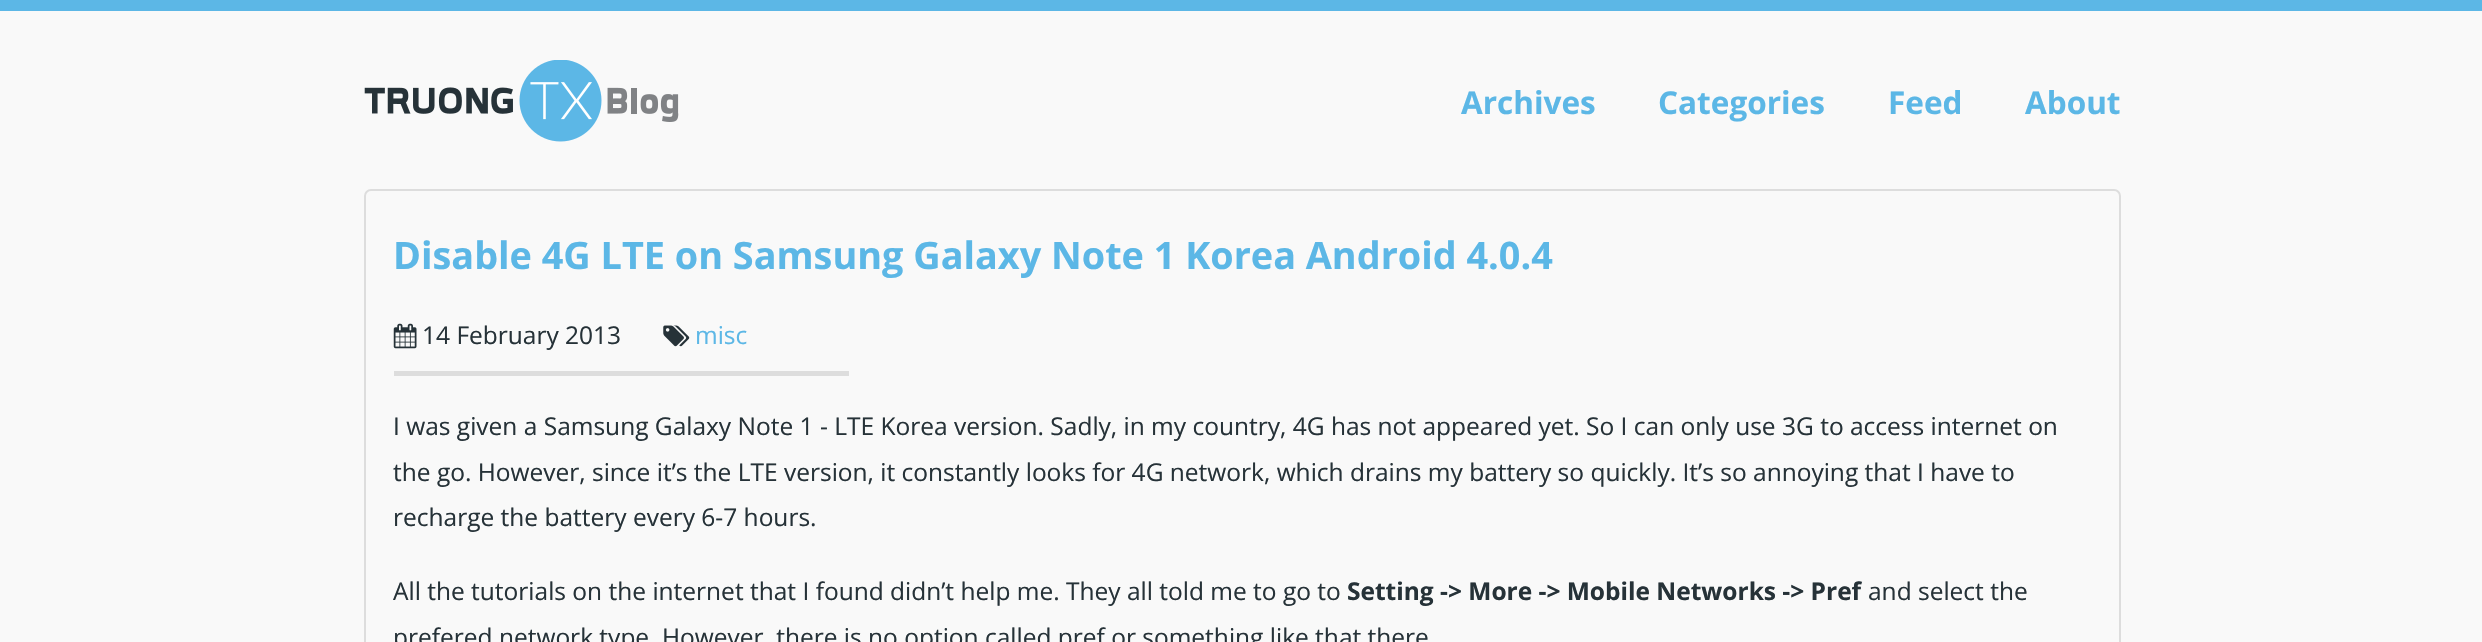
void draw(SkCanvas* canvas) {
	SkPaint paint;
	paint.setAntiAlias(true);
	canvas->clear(0xfff9f9f9);
	paint.setColor(0xff5cb7e6);
	canvas->drawRect(SkRect::MakeXYWH(0, 0, 2482, 11), paint);
	canvas->drawImageRect(SkImages::DeferredFromEncodedData(SkData::MakeFromFileName("img1.png")), SkRect::MakeXYWH(364, 60, 315, 82), SkSamplingOptions());
	SkFont f1(fontMgr->matchFamilyStyle("Open Sans", SkFontStyle::Bold()), 31.5);
	f1.setSubpixel(true);
	canvas->drawString("Archives", 1461, 114, f1, paint);
	canvas->drawString("Categories", 1658, 114, f1, paint);
	canvas->drawString("Feed", 1888, 114, f1, paint);
	canvas->drawString("About", 2025, 114, f1, paint);
	paint.setStroke(true);
	paint.setStrokeWidth(2);
	paint.setColor(0xffdddddd);
	canvas->drawRoundRect(SkRect::MakeXYWH(365, 190, 1755, 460), 6, 6, paint);
	SkFont f2(fontMgr->matchFamilyStyle("Open Sans", SkFontStyle::Bold()), 37.8);
	f2.setSubpixel(true);
	paint.setStroke(false);
	paint.setColor(0xff5cb7e6);
	canvas->drawString("Disable 4G LTE on Samsung Galaxy Note 1 Korea Android 4.0.4", 393, 269, f2, paint);
	canvas->drawImageRect(SkImages::DeferredFromEncodedData(SkData::MakeFromFileName("img2.png")), SkRect::MakeXYWH(393, 323, 24, 26), SkSamplingOptions());
	SkFont f3(fontMgr->matchFamilyStyle("Open Sans", SkFontStyle::Normal()), 24.5);
	f3.setSubpixel(true);
	paint.setColor(0xff263238);
	canvas->drawString("14 February 2013", 422, 344, f3, paint);
	canvas->drawImageRect(SkImages::DeferredFromEncodedData(SkData::MakeFromFileName("img3.png")), SkRect::MakeXYWH(663, 325, 27, 22), SkSamplingOptions());
	paint.setColor(0xff5cb7e6);
	canvas->drawString("misc", 695, 344, f3, paint);
	paint.setColor(0xffdddddd);
	canvas->drawRect(SkRect::MakeXYWH(394, 371, 455, 5), paint);
	paint.setColor(0xff263238);
	canvas->drawString("I was given a Samsung Galaxy Note 1 - LTE Korea version. Sadly, in my country, 4G has not appeared yet. So I can only use 3G to access internet on", 393, 435, f3, paint);
	canvas->drawString("the go. However, since it’s the LTE version, it constantly looks for 4G network, which drains my battery so quickly. It’s so annoying that I have to", 393, 481, f3, paint);
	canvas->drawString("recharge the battery every 6-7 hours.", 393, 526, f3, paint);
	canvas->drawString("All the tutorials on the internet that I found didn’t help me. They all told me to go to", 393, 600, f3, paint);
	SkFont f4(fontMgr->matchFamilyStyle("Open Sans", SkFontStyle::Bold()), 24.5);
	f4.setSubpixel(true);
	canvas->drawString("Setting -> More -> Mobile Networks -> Pref", 1347, 600, f4, paint);
	canvas->drawString("and select the", 1868, 600, f3, paint);
	canvas->drawString("prefered network type. However, there is no option called pref or something like that there", 393, 646, f3, paint);
}
